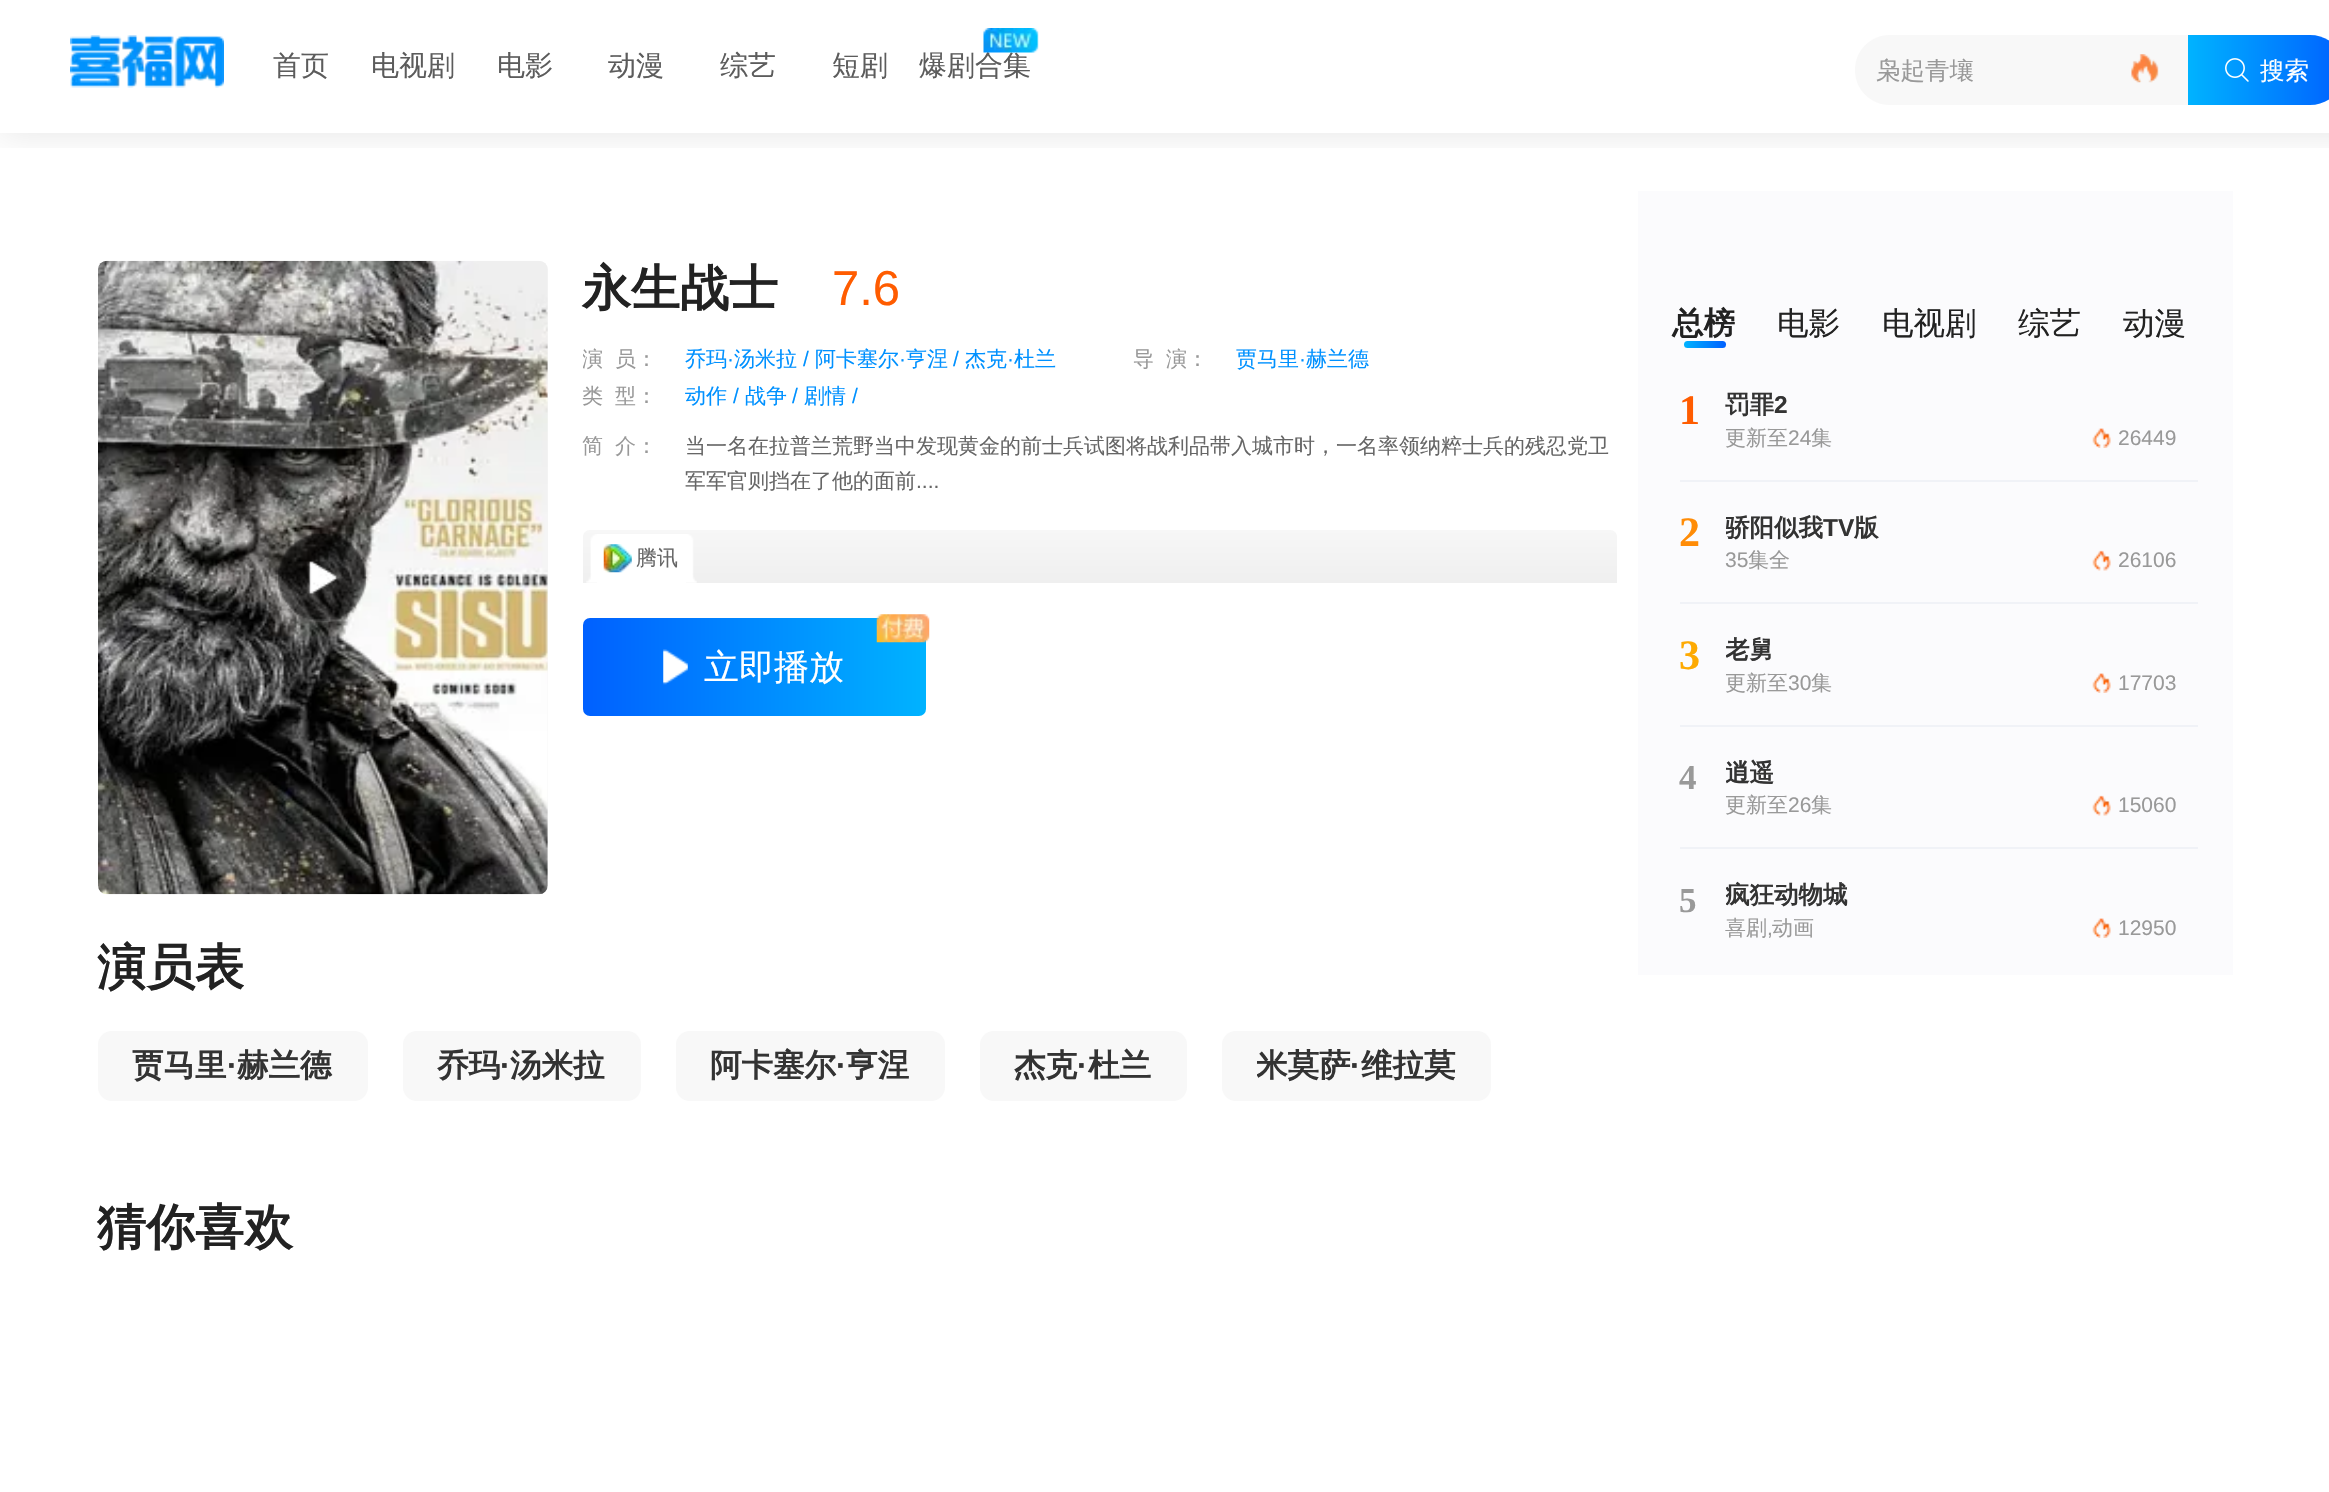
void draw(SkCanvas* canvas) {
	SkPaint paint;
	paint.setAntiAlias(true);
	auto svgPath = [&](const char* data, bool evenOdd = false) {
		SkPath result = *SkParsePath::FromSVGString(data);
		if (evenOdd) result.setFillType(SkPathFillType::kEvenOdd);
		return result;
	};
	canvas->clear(0xffffffff);
	canvas->save();
	canvas->clipRect(SkRect::MakeXYWH(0, 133, 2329, 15));
	paint.setColor(0x1a000000);
	paint.setMaskFilter(SkMaskFilter::MakeBlur(kNormal_SkBlurStyle, 17.5));
	canvas->drawRect(SkRect::MakeXYWH(0, 0, 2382, 133), paint);
	paint.setMaskFilter(nullptr);
	canvas->restore();
	canvas->drawImageRect(SkImages::DeferredFromEncodedData(SkData::MakeFromFileName("img1.png")), SkRect::MakeXYWH(70, 35, 154, 53), SkSamplingOptions());
	SkFont f1(fontMgr->matchFamilyStyle("WenQuanYi Zen Hei", SkFontStyle(500, SkFontStyle::kNormal_Width, SkFontStyle::kUpright_Slant)), 28);
	f1.setSubpixel(true);
	paint.setColor(0xff5c5c5c);
	canvas->drawString("首页", 273, 75, f1, paint);
	canvas->drawString("电视剧", 371, 75, f1, paint);
	canvas->drawString("电影", 497, 75, f1, paint);
	canvas->drawString("动漫", 608, 75, f1, paint);
	canvas->drawString("综艺", 720, 75, f1, paint);
	canvas->drawString("短剧", 832, 75, f1, paint);
	canvas->drawString("爆剧合集", 919, 75, f1, paint);
	canvas->drawImageRect(SkImages::DeferredFromEncodedData(SkData::MakeFromFileName("img2.png")), SkRect::MakeXYWH(983, 28, 56, 25), SkSamplingOptions());
	paint.setColor(0xfff8f8f8);
	canvas->drawPath(svgPath("M1890 35H2188V105H1890C1870.5 105 1855 89.5 1855 70C1855 50.5 1870.5 35 1890 35Z"), paint);
	SkFont f2(fontMgr->matchFamilyStyle("WenQuanYi Zen Hei", SkFontStyle(500, SkFontStyle::kNormal_Width, SkFontStyle::kUpright_Slant)), 24.5);
	f2.setSubpixel(true);
	paint.setColor(0xff999999);
	canvas->drawString("枭起青壤", 1876, 79, f2, paint);
	canvas->drawImageRect(SkImages::DeferredFromEncodedData(SkData::MakeFromFileName("img3.png")), SkRect::MakeXYWH(2131, 54, 28, 29), SkSamplingOptions());
	{
		const SkColor colors[] = {0xff00b3ff, 0xff0060ff};
		const float stops[] = {0, 1};
		const SkPoint ends[] = {{2188, 70}, {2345, 70}};
		paint.setShader(SkGradientShader::MakeLinear(ends, colors, stops, 2, SkTileMode::kClamp));
		paint.setAlpha(255);
	}
	canvas->drawPath(svgPath("M2188 35H2310C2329.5 35 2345 50.5 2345 70C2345 89.5 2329.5 105 2310 105H2188Z"), paint);
	canvas->drawImageRect(SkImages::DeferredFromEncodedData(SkData::MakeFromFileName("img4.png")), SkRect::MakeXYWH(2225, 58, 24, 24), SkSamplingOptions());
	paint.setShader(nullptr);
	paint.setColor(0xffffffff);
	canvas->drawString("搜索", 2260, 79, f2, paint);
	paint.setColor(0xfff5f5f5);
	canvas->drawRoundRect(SkRect::MakeXYWH(98, 261, 450, 633), 9, 9, paint);
	canvas->drawImageRect(SkImages::DeferredFromEncodedData(SkData::MakeFromFileName("img5.png")), SkRect::MakeXYWH(98, 260, 450, 635), SkSamplingOptions());
	canvas->drawImageRect(SkImages::DeferredFromEncodedData(SkData::MakeFromFileName("img6.png")), SkRect::MakeXYWH(278, 533, 88, 89), SkSamplingOptions());
	SkFont f3(fontMgr->matchFamilyStyle("WenQuanYi Zen Hei", SkFontStyle::Bold()), 49);
	f3.setSubpixel(true);
	paint.setColor(0xff222222);
	canvas->drawString("永生战士", 582, 305, f3, paint);
	SkFont f4(fontMgr->matchFamilyStyle("Liberation Sans", SkFontStyle::Normal()), 49);
	f4.setSubpixel(true);
	paint.setColor(0xffff5c00);
	canvas->drawString("7.6", 832, 305, f4, paint);
	canvas->save();
	canvas->clipRect(SkRect::MakeXYWH(583, 341, 474, 35));
	SkFont f5(fontMgr->matchFamilyStyle("WenQuanYi Zen Hei", SkFontStyle(500, SkFontStyle::kNormal_Width, SkFontStyle::kUpright_Slant)), 21);
	f5.setSubpixel(true);
	paint.setColor(0xff999999);
	canvas->drawString("演", 582, 366, f5, paint);
	canvas->restore();
	canvas->drawString("员：", 615, 366, f5, paint);
	paint.setColor(0xff0091ff);
	canvas->drawString("乔玛", 685, 366, f5, paint);
	SkFont f6(fontMgr->matchFamilyStyle("Liberation Sans", SkFontStyle::Normal()), 21);
	f6.setSubpixel(true);
	canvas->drawString("·", 727, 366, f6, paint);
	canvas->drawString("汤米拉", 734, 366, f5, paint);
	canvas->drawString("/", 803, 366, f6, paint);
	canvas->drawString("阿卡塞尔", 815, 366, f5, paint);
	canvas->drawString("·", 899, 366, f6, paint);
	canvas->drawString("亨涅", 906, 366, f5, paint);
	canvas->drawString("/", 953, 366, f6, paint);
	canvas->drawString("杰克", 965, 366, f5, paint);
	canvas->drawString("·", 1007, 366, f6, paint);
	canvas->drawString("杜兰", 1014, 366, f5, paint);
	paint.setColor(0xff999999);
	canvas->drawString("导", 1133, 366, f5, paint);
	canvas->drawString("演：", 1166, 366, f5, paint);
	paint.setColor(0xff0091ff);
	canvas->drawString("贾马里", 1236, 366, f5, paint);
	canvas->drawString("·", 1299, 366, f6, paint);
	canvas->drawString("赫兰德", 1306, 366, f5, paint);
	paint.setColor(0xff999999);
	canvas->drawString("类", 582, 403, f5, paint);
	canvas->drawString("型：", 615, 403, f5, paint);
	paint.setColor(0xff0091ff);
	canvas->drawString("动作", 685, 403, f5, paint);
	canvas->drawString("/", 733, 403, f6, paint);
	canvas->drawString("战争", 745, 403, f5, paint);
	canvas->drawString("/", 792, 403, f6, paint);
	canvas->drawString("剧情", 804, 403, f5, paint);
	canvas->drawString("/", 852, 403, f6, paint);
	paint.setColor(0xff999999);
	canvas->drawString("简", 582, 453, f5, paint);
	canvas->drawString("介：", 615, 453, f5, paint);
	paint.setColor(0xff666666);
	canvas->drawString("当一名在拉普兰荒野当中发现黄金的前士兵试图将战利品带入城市时，一名率领纳粹士兵的残忍党卫", 685, 453, f5, paint);
	canvas->drawString("军军官则挡在了他的面前", 685, 488, f5, paint);
	canvas->drawString("....", 916, 488, f6, paint);
	{
		const SkColor colors[] = {0xfff7f7f7, 0xffefefef};
		const float stops[] = {0, 1};
		const SkPoint ends[] = {{1100, 530}, {1100, 583}};
		paint.setShader(SkGradientShader::MakeLinear(ends, colors, stops, 2, SkTileMode::kClamp));
		paint.setAlpha(255);
	}
	canvas->drawPath(svgPath("M590 530H1610C1614 530 1617 533 1617 537V583H583V537C583 533 586 530 590 530Z"), paint);
	canvas->drawImageRect(SkImages::DeferredFromEncodedData(SkData::MakeFromFileName("img7.png")), SkRect::MakeXYWH(686, 534, 11, 49), SkSamplingOptions());
	canvas->drawImageRect(SkImages::DeferredFromEncodedData(SkData::MakeFromFileName("img8.png")), SkRect::MakeXYWH(586, 534, 11, 49), SkSamplingOptions());
	paint.setShader(nullptr);
	paint.setColor(0xffffffff);
	canvas->drawRect(SkRect::MakeXYWH(597, 534, 89, 49), paint);
	canvas->drawImageRect(SkImages::DeferredFromEncodedData(SkData::MakeFromFileName("img9.png")), SkRect::MakeXYWH(603, 544, 29, 29), SkSamplingOptions());
	paint.setColor(0xff666666);
	canvas->drawString("腾讯", 636, 565, f5, paint);
	{
		const SkColor colors[] = {0xff0060ff, 0xff00b3ff};
		const float stops[] = {0, 1};
		const SkPoint ends[] = {{583, 667}, {926, 667}};
		paint.setShader(SkGradientShader::MakeLinear(ends, colors, stops, 2, SkTileMode::kClamp));
		paint.setAlpha(255);
	}
	canvas->drawRoundRect(SkRect::MakeXYWH(583, 618, 343, 98), 7, 7, paint);
	canvas->drawImageRect(SkImages::DeferredFromEncodedData(SkData::MakeFromFileName("img10.png")), SkRect::MakeXYWH(876, 614, 54, 29), SkSamplingOptions());
	canvas->drawImageRect(SkImages::DeferredFromEncodedData(SkData::MakeFromFileName("img11.png")), SkRect::MakeXYWH(663, 649, 25, 36), SkSamplingOptions());
	SkFont f7(fontMgr->matchFamilyStyle("WenQuanYi Zen Hei", SkFontStyle(500, SkFontStyle::kNormal_Width, SkFontStyle::kUpright_Slant)), 35);
	f7.setSubpixel(true);
	paint.setShader(nullptr);
	paint.setColor(0xffffffff);
	canvas->drawString("立即播放", 704, 679, f7, paint);
	paint.setColor(0xff222222);
	canvas->drawString("演员表", 97, 984, f3, paint);
	paint.setColor(0xfff8f8f8);
	canvas->drawRoundRect(SkRect::MakeXYWH(98, 1031, 270, 70), 14, 14, paint);
	SkFont f8(fontMgr->matchFamilyStyle("WenQuanYi Zen Hei", SkFontStyle::Bold()), 31.5);
	f8.setSubpixel(true);
	paint.setColor(0xff333333);
	canvas->drawString("贾马里", 132, 1076, f8, paint);
	SkFont f9(fontMgr->matchFamilyStyle("Liberation Sans", SkFontStyle::Bold()), 31.5);
	f9.setSubpixel(true);
	canvas->drawString("·", 227, 1076, f9, paint);
	canvas->drawString("赫兰德", 237, 1076, f8, paint);
	paint.setColor(0xfff8f8f8);
	canvas->drawRoundRect(SkRect::MakeXYWH(403, 1031, 238, 70), 14, 14, paint);
	paint.setColor(0xff333333);
	canvas->drawString("乔玛", 437, 1076, f8, paint);
	canvas->drawString("·", 500, 1076, f9, paint);
	canvas->drawString("汤米拉", 510, 1076, f8, paint);
	paint.setColor(0xfff8f8f8);
	canvas->drawRoundRect(SkRect::MakeXYWH(676, 1031, 269, 70), 14, 14, paint);
	paint.setColor(0xff333333);
	canvas->drawString("阿卡塞尔", 710, 1076, f8, paint);
	canvas->drawString("·", 836, 1076, f9, paint);
	canvas->drawString("亨涅", 846, 1076, f8, paint);
	paint.setColor(0xfff8f8f8);
	canvas->drawRoundRect(SkRect::MakeXYWH(980, 1031, 207, 70), 14, 14, paint);
	paint.setColor(0xff333333);
	canvas->drawString("杰克", 1014, 1076, f8, paint);
	canvas->drawString("·", 1077, 1076, f9, paint);
	canvas->drawString("杜兰", 1088, 1076, f8, paint);
	paint.setColor(0xfff8f8f8);
	canvas->drawRoundRect(SkRect::MakeXYWH(1222, 1031, 269, 70), 14, 14, paint);
	canvas->save();
	canvas->clipRect(SkRect::MakeXYWH(1257, 1031, 199, 70));
	paint.setColor(0xff333333);
	canvas->drawString("米莫萨", 1256, 1076, f8, paint);
	canvas->restore();
	canvas->drawString("·", 1350, 1076, f9, paint);
	canvas->drawString("维拉莫", 1361, 1076, f8, paint);
	paint.setColor(0xfffbfbfd);
	canvas->drawRect(SkRect::MakeXYWH(1638, 191, 595, 784), paint);
	paint.setColor(0xff222222);
	canvas->drawString("总榜", 1672, 334, f8, paint);
	{
		const SkColor colors[] = {0xff0060ff, 0xff00b3ff};
		const float stops[] = {0, 1};
		const SkPoint ends[] = {{1726, 345}, {1684, 345}};
		paint.setShader(SkGradientShader::MakeLinear(ends, colors, stops, 2, SkTileMode::kClamp));
		paint.setAlpha(255);
	}
	canvas->drawRoundRect(SkRect::MakeXYWH(1684, 341, 42, 7), 3.5, 3.5, paint);
	SkFont f10(fontMgr->matchFamilyStyle("WenQuanYi Zen Hei", SkFontStyle(500, SkFontStyle::kNormal_Width, SkFontStyle::kUpright_Slant)), 31.5);
	f10.setSubpixel(true);
	paint.setShader(nullptr);
	paint.setColor(0xff222222);
	canvas->drawString("电影", 1777, 334, f10, paint);
	canvas->drawString("电视剧", 1882, 334, f10, paint);
	canvas->drawString("综艺", 2018, 334, f10, paint);
	canvas->drawString("动漫", 2123, 334, f10, paint);
	paint.setColor(0xfff0f2f7);
	canvas->drawRect(SkRect::MakeXYWH(1680, 480, 518, 2), paint);
	SkFont f11(fontMgr->matchFamilyStyle("Liberation Serif", SkFontStyle::Bold()), 42);
	f11.setSubpixel(true);
	paint.setColor(0xffff5c00);
	canvas->drawString("1", 1679, 424, f11, paint);
	SkFont f12(fontMgr->matchFamilyStyle("WenQuanYi Zen Hei", SkFontStyle::Bold()), 24.5);
	f12.setSubpixel(true);
	paint.setColor(0xff333333);
	canvas->drawString("罚罪", 1725, 413, f12, paint);
	SkFont f13(fontMgr->matchFamilyStyle("Liberation Sans", SkFontStyle::Bold()), 24.5);
	f13.setSubpixel(true);
	canvas->drawString("2", 1774, 413, f13, paint);
	paint.setColor(0xff999999);
	canvas->drawString("更新至", 1725, 445, f5, paint);
	canvas->drawString("24", 1788, 445, f6, paint);
	canvas->drawString("集", 1811, 445, f5, paint);
	canvas->drawImageRect(SkImages::DeferredFromEncodedData(SkData::MakeFromFileName("img12.png")), SkRect::MakeXYWH(2092, 428, 19, 20), SkSamplingOptions());
	canvas->drawString("26449", 2118, 445, f6, paint);
	paint.setColor(0xfff0f2f7);
	canvas->drawRect(SkRect::MakeXYWH(1680, 602, 518, 2), paint);
	paint.setColor(0xffff8c07);
	canvas->drawString("2", 1679, 546, f11, paint);
	canvas->save();
	canvas->clipRect(SkRect::MakeXYWH(1726, 481, 458, 65));
	paint.setColor(0xff333333);
	canvas->drawString("骄阳似我", 1725, 536, f12, paint);
	canvas->restore();
	canvas->drawString("TV", 1823, 536, f13, paint);
	canvas->drawString("版", 1854, 536, f12, paint);
	paint.setColor(0xff999999);
	canvas->drawString("35", 1725, 567, f6, paint);
	canvas->drawString("集全", 1748, 567, f5, paint);
	canvas->drawImageRect(SkImages::DeferredFromEncodedData(SkData::MakeFromFileName("img13.png")), SkRect::MakeXYWH(2092, 550, 19, 21), SkSamplingOptions());
	canvas->drawString("26106", 2118, 567, f6, paint);
	paint.setColor(0xfff0f2f7);
	canvas->drawRect(SkRect::MakeXYWH(1680, 725, 518, 2), paint);
	paint.setColor(0xfffeaa02);
	canvas->drawString("3", 1679, 669, f11, paint);
	canvas->save();
	canvas->clipRect(SkRect::MakeXYWH(1726, 604, 458, 65));
	paint.setColor(0xff333333);
	canvas->drawString("老舅", 1725, 658, f12, paint);
	canvas->restore();
	paint.setColor(0xff999999);
	canvas->drawString("更新至", 1725, 690, f5, paint);
	canvas->drawString("30", 1788, 690, f6, paint);
	canvas->drawString("集", 1811, 690, f5, paint);
	canvas->drawImageRect(SkImages::DeferredFromEncodedData(SkData::MakeFromFileName("img12.png")), SkRect::MakeXYWH(2092, 673, 19, 20), SkSamplingOptions());
	canvas->drawString("17703", 2118, 690, f6, paint);
	paint.setColor(0xfff0f2f7);
	canvas->drawRect(SkRect::MakeXYWH(1680, 847, 518, 2), paint);
	SkFont f14(fontMgr->matchFamilyStyle("Liberation Serif", SkFontStyle::Bold()), 35);
	f14.setSubpixel(true);
	paint.setColor(0xff999999);
	canvas->drawString("4", 1679, 789, f14, paint);
	canvas->save();
	canvas->clipRect(SkRect::MakeXYWH(1726, 726, 458, 65));
	paint.setColor(0xff333333);
	canvas->drawString("逍遥", 1725, 781, f12, paint);
	canvas->restore();
	paint.setColor(0xff999999);
	canvas->drawString("更新至", 1725, 812, f5, paint);
	canvas->drawString("26", 1788, 812, f6, paint);
	canvas->drawString("集", 1811, 812, f5, paint);
	canvas->drawImageRect(SkImages::DeferredFromEncodedData(SkData::MakeFromFileName("img13.png")), SkRect::MakeXYWH(2092, 795, 19, 21), SkSamplingOptions());
	canvas->drawString("15060", 2118, 812, f6, paint);
	canvas->drawString("5", 1679, 912, f14, paint);
	canvas->save();
	canvas->clipRect(SkRect::MakeXYWH(1726, 849, 458, 65));
	paint.setColor(0xff333333);
	canvas->drawString("疯狂动物城", 1725, 903, f12, paint);
	canvas->restore();
	paint.setColor(0xff999999);
	canvas->drawString("喜剧", 1725, 935, f5, paint);
	canvas->drawString(",", 1767, 935, f6, paint);
	canvas->drawString("动画", 1772, 935, f5, paint);
	canvas->drawImageRect(SkImages::DeferredFromEncodedData(SkData::MakeFromFileName("img12.png")), SkRect::MakeXYWH(2092, 918, 19, 20), SkSamplingOptions());
	canvas->drawString("12950", 2118, 935, f6, paint);
	paint.setColor(0xff222222);
	canvas->drawString("猜你喜欢", 97, 1244, f3, paint);
}
